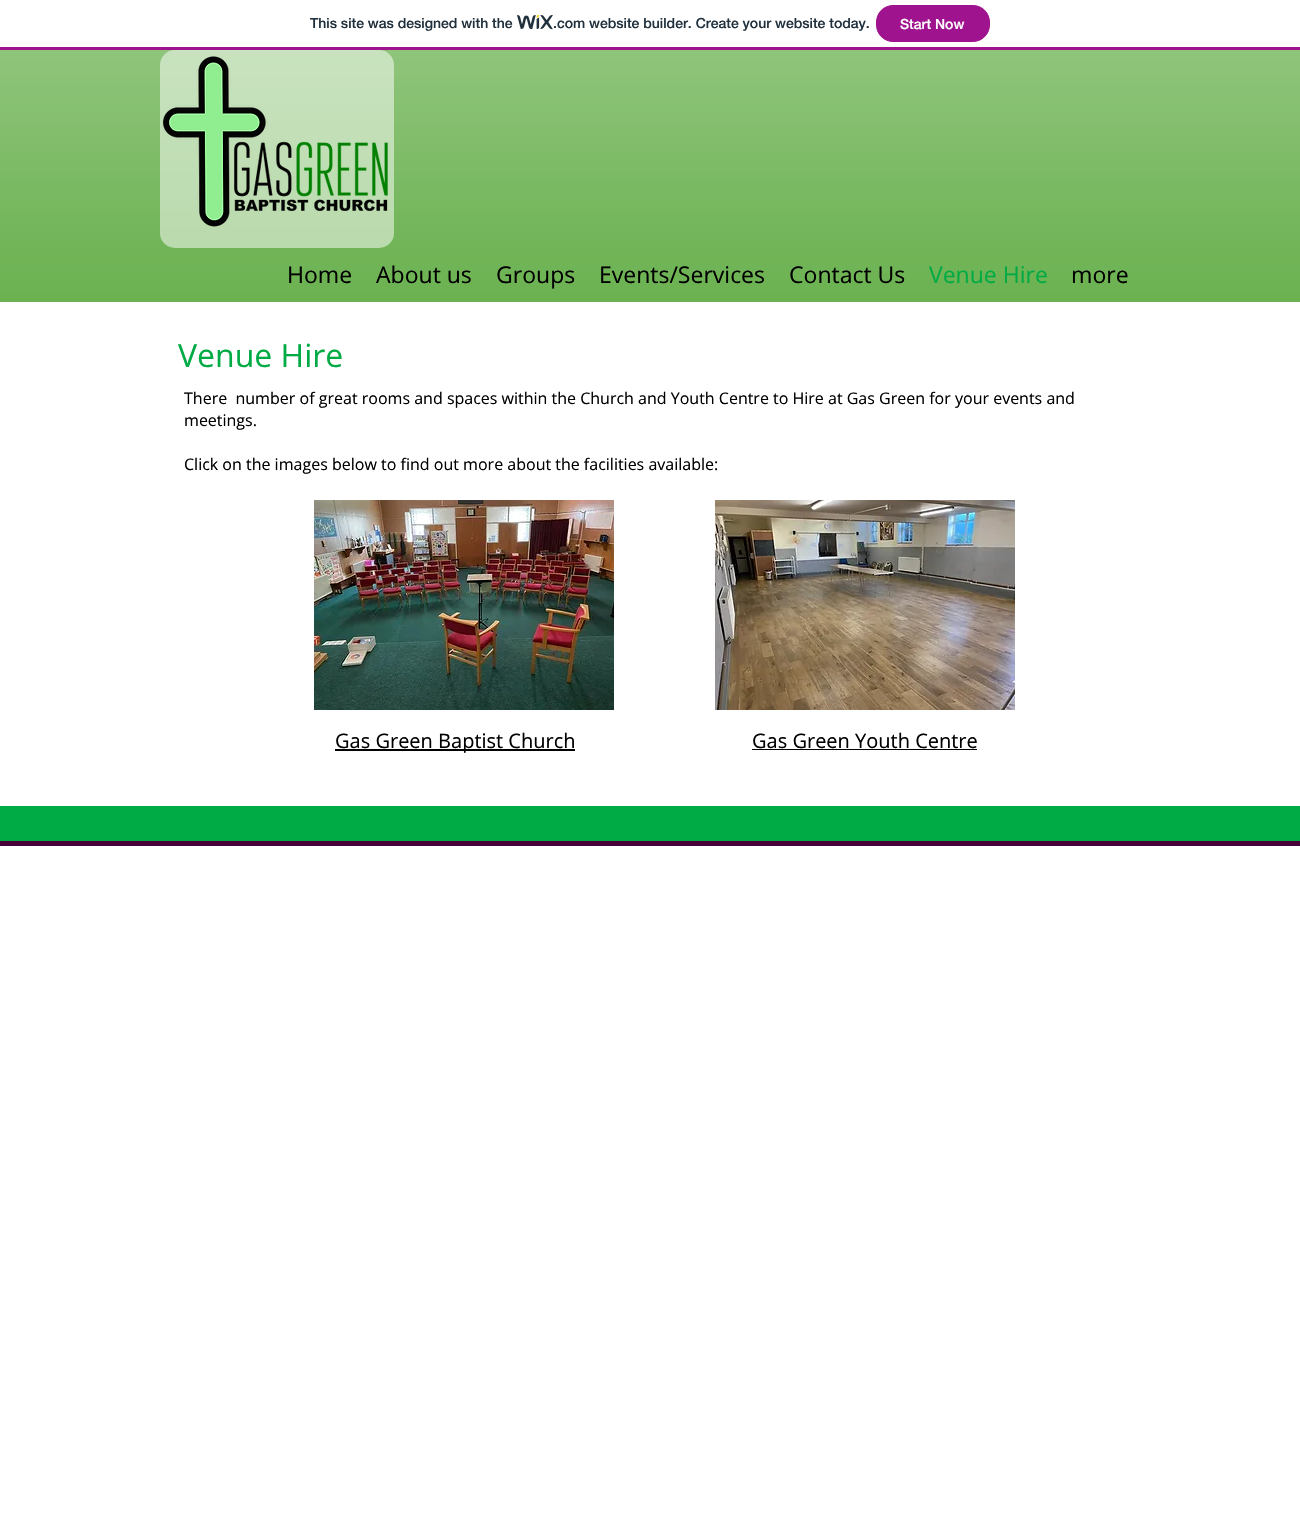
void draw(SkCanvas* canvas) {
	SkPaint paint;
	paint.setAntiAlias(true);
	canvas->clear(0xffffffff);
	paint.setColor(0xffa0138e);
	canvas->drawRect(SkRect::MakeXYWH(0, 47, 1300, 3), paint);
	SkFont f1(fontMgr->matchFamilyStyle("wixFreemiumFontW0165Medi", SkFontStyle(500, SkFontStyle::kNormal_Width, SkFontStyle::kUpright_Slant)), 14);
	f1.setSubpixel(true);
	paint.setColor(0xff20303c);
	canvas->drawString("This site was designed with the", 310, 28, f1, paint);
	canvas->drawImageRect(SkImages::DeferredFromEncodedData(SkData::MakeFromFileName("img1.png")), SkRect::MakeXYWH(517, 15, 36, 15), SkSamplingOptions());
	canvas->drawString(".com website builder. Create your website today.", 553, 28, f1, paint);
	paint.setColor(0xffa0138e);
	canvas->drawRoundRect(SkRect::MakeXYWH(876.5, 5.5, 113, 36), 16.5, 16.5, paint);
	paint.setStroke(true);
	paint.setStrokeWidth(1);
	canvas->drawRoundRect(SkRect::MakeXYWH(876.5, 5.5, 113, 36), 16.5, 16.5, paint);
	paint.setStroke(false);
	paint.setColor(0xffffffff);
	canvas->drawString("Start Now", 900, 29, f1, paint);
	paint.setColor(0xff68b04d);
	canvas->drawRect(SkRect::MakeXYWH(0, 50, 1300, 252), paint);
	canvas->drawImageRect(SkImages::DeferredFromEncodedData(SkData::MakeFromFileName("img2.png")), SkRect::MakeXYWH(0, 50, 1300, 252), SkSamplingOptions());
	paint.setColor(0x82ffffff);
	canvas->drawRoundRect(SkRect::MakeXYWH(160, 50, 234, 198), 15, 15, paint);
	canvas->drawImageRect(SkImages::DeferredFromEncodedData(SkData::MakeFromFileName("img3.png")), SkRect::MakeXYWH(162, 56, 226, 171), SkSamplingOptions());
	SkFont f2(fontMgr->matchFamilyStyle("Open Sans", SkFontStyle::Normal()), 23);
	f2.setSubpixel(true);
	paint.setColor(0xff000000);
	canvas->drawString("Home", 287, 283, f2, paint);
	canvas->drawString("About us", 376, 283, f2, paint);
	canvas->drawString("Groups", 496, 283, f2, paint);
	canvas->drawString("Events/Services", 599, 283, f2, paint);
	canvas->drawString("Contact Us", 789, 283, f2, paint);
	paint.setColor(0xff00aa44);
	canvas->drawString("Venue Hire", 929, 283, f2, paint);
	paint.setColor(0xff000000);
	canvas->drawString("more", 1071, 283, f2, paint);
	SkFont f3(fontMgr->matchFamilyStyle("Open Sans", SkFontStyle::Normal()), 32);
	f3.setSubpixel(true);
	paint.setColor(0xff00aa44);
	canvas->drawString("Venue Hire", 178, 367, f3, paint);
	SkFont f4(fontMgr->matchFamilyStyle("Open Sans", SkFontStyle::Normal()), 16);
	f4.setSubpixel(true);
	paint.setColor(0xff000000);
	canvas->drawString("There  number of great rooms and spaces within the Church and Youth Centre to Hire at Gas Green for your events and", 184, 404, f4, paint);
	canvas->drawString("meetings.", 184, 426, f4, paint);
	canvas->drawString("Click on the images below to find out more about the facilities available:", 184, 470, f4, paint);
	canvas->drawRect(SkRect::MakeXYWH(335, 749, 240, 2), paint);
	SkFont f5(fontMgr->matchFamilyStyle("Open Sans", SkFontStyle::Normal()), 20);
	f5.setSubpixel(true);
	canvas->drawString("Gas Green Baptist Church", 335, 748, f5, paint);
	canvas->drawString("Gas Green Youth Centre", 752, 748, f5, paint);
	canvas->drawRect(SkRect::MakeXYWH(752, 749, 225, 1), paint);
	canvas->drawImageRect(SkImages::DeferredFromEncodedData(SkData::MakeFromFileName("img4.png")), SkRect::MakeXYWH(314, 500, 300, 210), SkSamplingOptions());
	canvas->drawImageRect(SkImages::DeferredFromEncodedData(SkData::MakeFromFileName("img5.png")), SkRect::MakeXYWH(715, 500, 300, 210), SkSamplingOptions());
	paint.setColor(0xff00aa44);
	canvas->drawRect(SkRect::MakeXYWH(0, 806, 1300, 35), paint);
	paint.setColor(0xff490036);
	canvas->drawRect(SkRect::MakeXYWH(0, 841, 1300, 5), paint);
}
